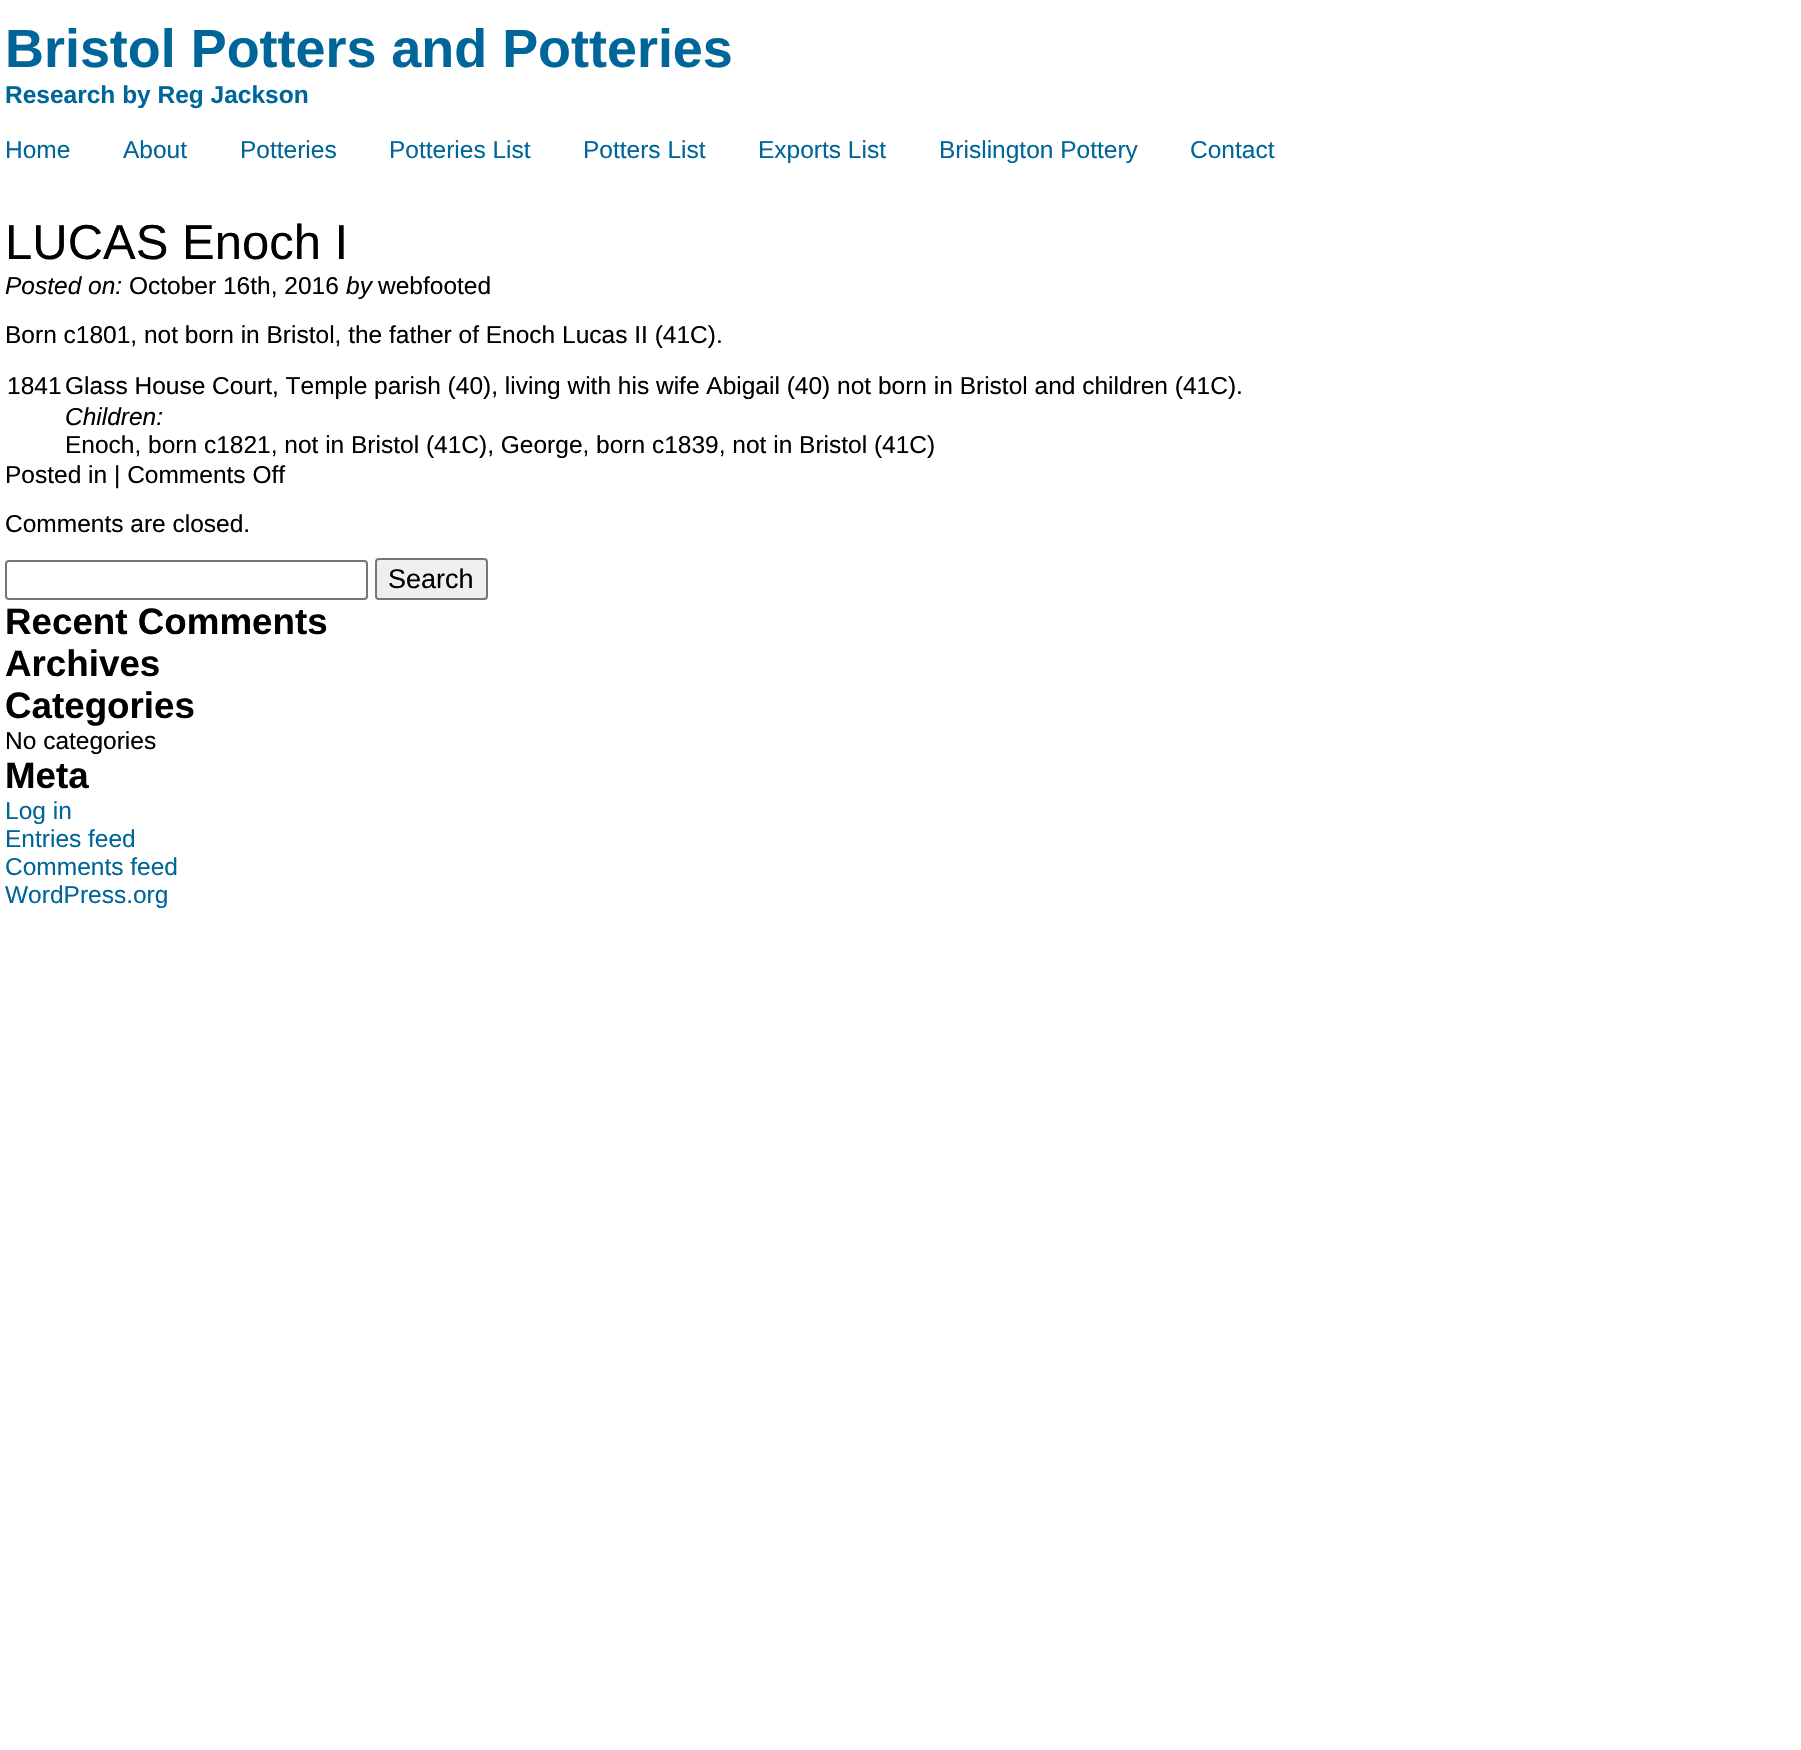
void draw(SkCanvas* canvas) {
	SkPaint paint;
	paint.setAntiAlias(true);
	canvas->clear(0xffffffff);
	SkFont f1(fontMgr->matchFamilyStyle("Liberation Sans", SkFontStyle::Bold()), 53.9);
	f1.setSubpixel(true);
	paint.setColor(0xff006699);
	canvas->drawString("Bristol Potters and Potteries", 5, 67, f1, paint);
	SkFont f2(fontMgr->matchFamilyStyle("Liberation Sans", SkFontStyle::Bold()), 24.5);
	f2.setSubpixel(true);
	canvas->drawString("Research by Reg Jackson", 5, 103, f2, paint);
	SkFont f3(fontMgr->matchFamilyStyle("Liberation Sans", SkFontStyle::Normal()), 24.5);
	f3.setSubpixel(true);
	canvas->drawString("Home", 5, 158, f3, paint);
	canvas->drawString("About", 123, 158, f3, paint);
	canvas->drawString("Potteries", 240, 158, f3, paint);
	canvas->drawString("Potteries List", 389, 158, f3, paint);
	canvas->drawString("Potters List", 583, 158, f3, paint);
	canvas->drawString("Exports List", 758, 158, f3, paint);
	canvas->drawString("Brislington Pottery", 939, 158, f3, paint);
	canvas->drawString("Contact", 1190, 158, f3, paint);
	SkFont f4(fontMgr->matchFamilyStyle("Liberation Sans", SkFontStyle::Normal()), 49);
	f4.setSubpixel(true);
	paint.setColor(0xff000000);
	canvas->drawString("LUCAS Enoch I", 5, 259, f4, paint);
	SkFont f5(fontMgr->matchFamilyStyle("Liberation Sans", SkFontStyle::Italic()), 24.5);
	f5.setSubpixel(true);
	canvas->drawString("Posted on:", 5, 294, f5, paint);
	canvas->drawString("October 16th, 2016", 129, 294, f3, paint);
	canvas->drawString("by", 346, 294, f5, paint);
	canvas->drawString("webfooted", 378, 294, f3, paint);
	canvas->drawString("Born c1801, not born in Bristol, the father of Enoch Lucas II (41C).", 5, 343, f3, paint);
	canvas->drawString("1841", 7, 394, f3, paint);
	canvas->drawString("Glass House Court, Temple parish (40), living with his wife Abigail (40) not born in Bristol and children (41C).", 65, 394, f3, paint);
	canvas->drawString("Children:", 65, 425, f5, paint);
	canvas->drawString("Enoch, born c1821, not in Bristol (41C), George, born c1839, not in Bristol (41C)", 65, 453, f3, paint);
	canvas->drawString("Posted in | Comments Off", 5, 483, f3, paint);
	canvas->drawString("Comments are closed.", 5, 532, f3, paint);
	paint.setStroke(true);
	paint.setStrokeWidth(2);
	paint.setColor(0xff767676);
	canvas->drawRoundRect(SkRect::MakeXYWH(6, 561, 361, 38), 3, 3, paint);
	paint.setStroke(false);
	paint.setColor(0xffefefef);
	canvas->drawRoundRect(SkRect::MakeXYWH(376, 559, 111, 40), 3, 3, paint);
	paint.setStroke(true);
	paint.setColor(0xff767676);
	canvas->drawRoundRect(SkRect::MakeXYWH(376, 559, 111, 40), 3, 3, paint);
	SkFont f6(fontMgr->matchFamilyStyle("Liberation Sans", SkFontStyle::Normal()), 27);
	f6.setSubpixel(true);
	paint.setStroke(false);
	paint.setColor(0xff000000);
	canvas->drawString("Search", 388, 588, f6, paint);
	SkFont f7(fontMgr->matchFamilyStyle("Liberation Sans", SkFontStyle::Bold()), 36.75);
	f7.setSubpixel(true);
	canvas->drawString("Recent Comments", 5, 634, f7, paint);
	canvas->drawString("Archives", 5, 676, f7, paint);
	canvas->drawString("Categories", 5, 718, f7, paint);
	canvas->drawString("No categories", 5, 749, f3, paint);
	canvas->drawString("Meta", 5, 788, f7, paint);
	paint.setColor(0xff006699);
	canvas->drawString("Log in", 5, 819, f3, paint);
	canvas->drawString("Entries feed", 5, 847, f3, paint);
	canvas->drawString("Comments feed", 5, 875, f3, paint);
	canvas->drawString("WordPress.org", 5, 903, f3, paint);
}
